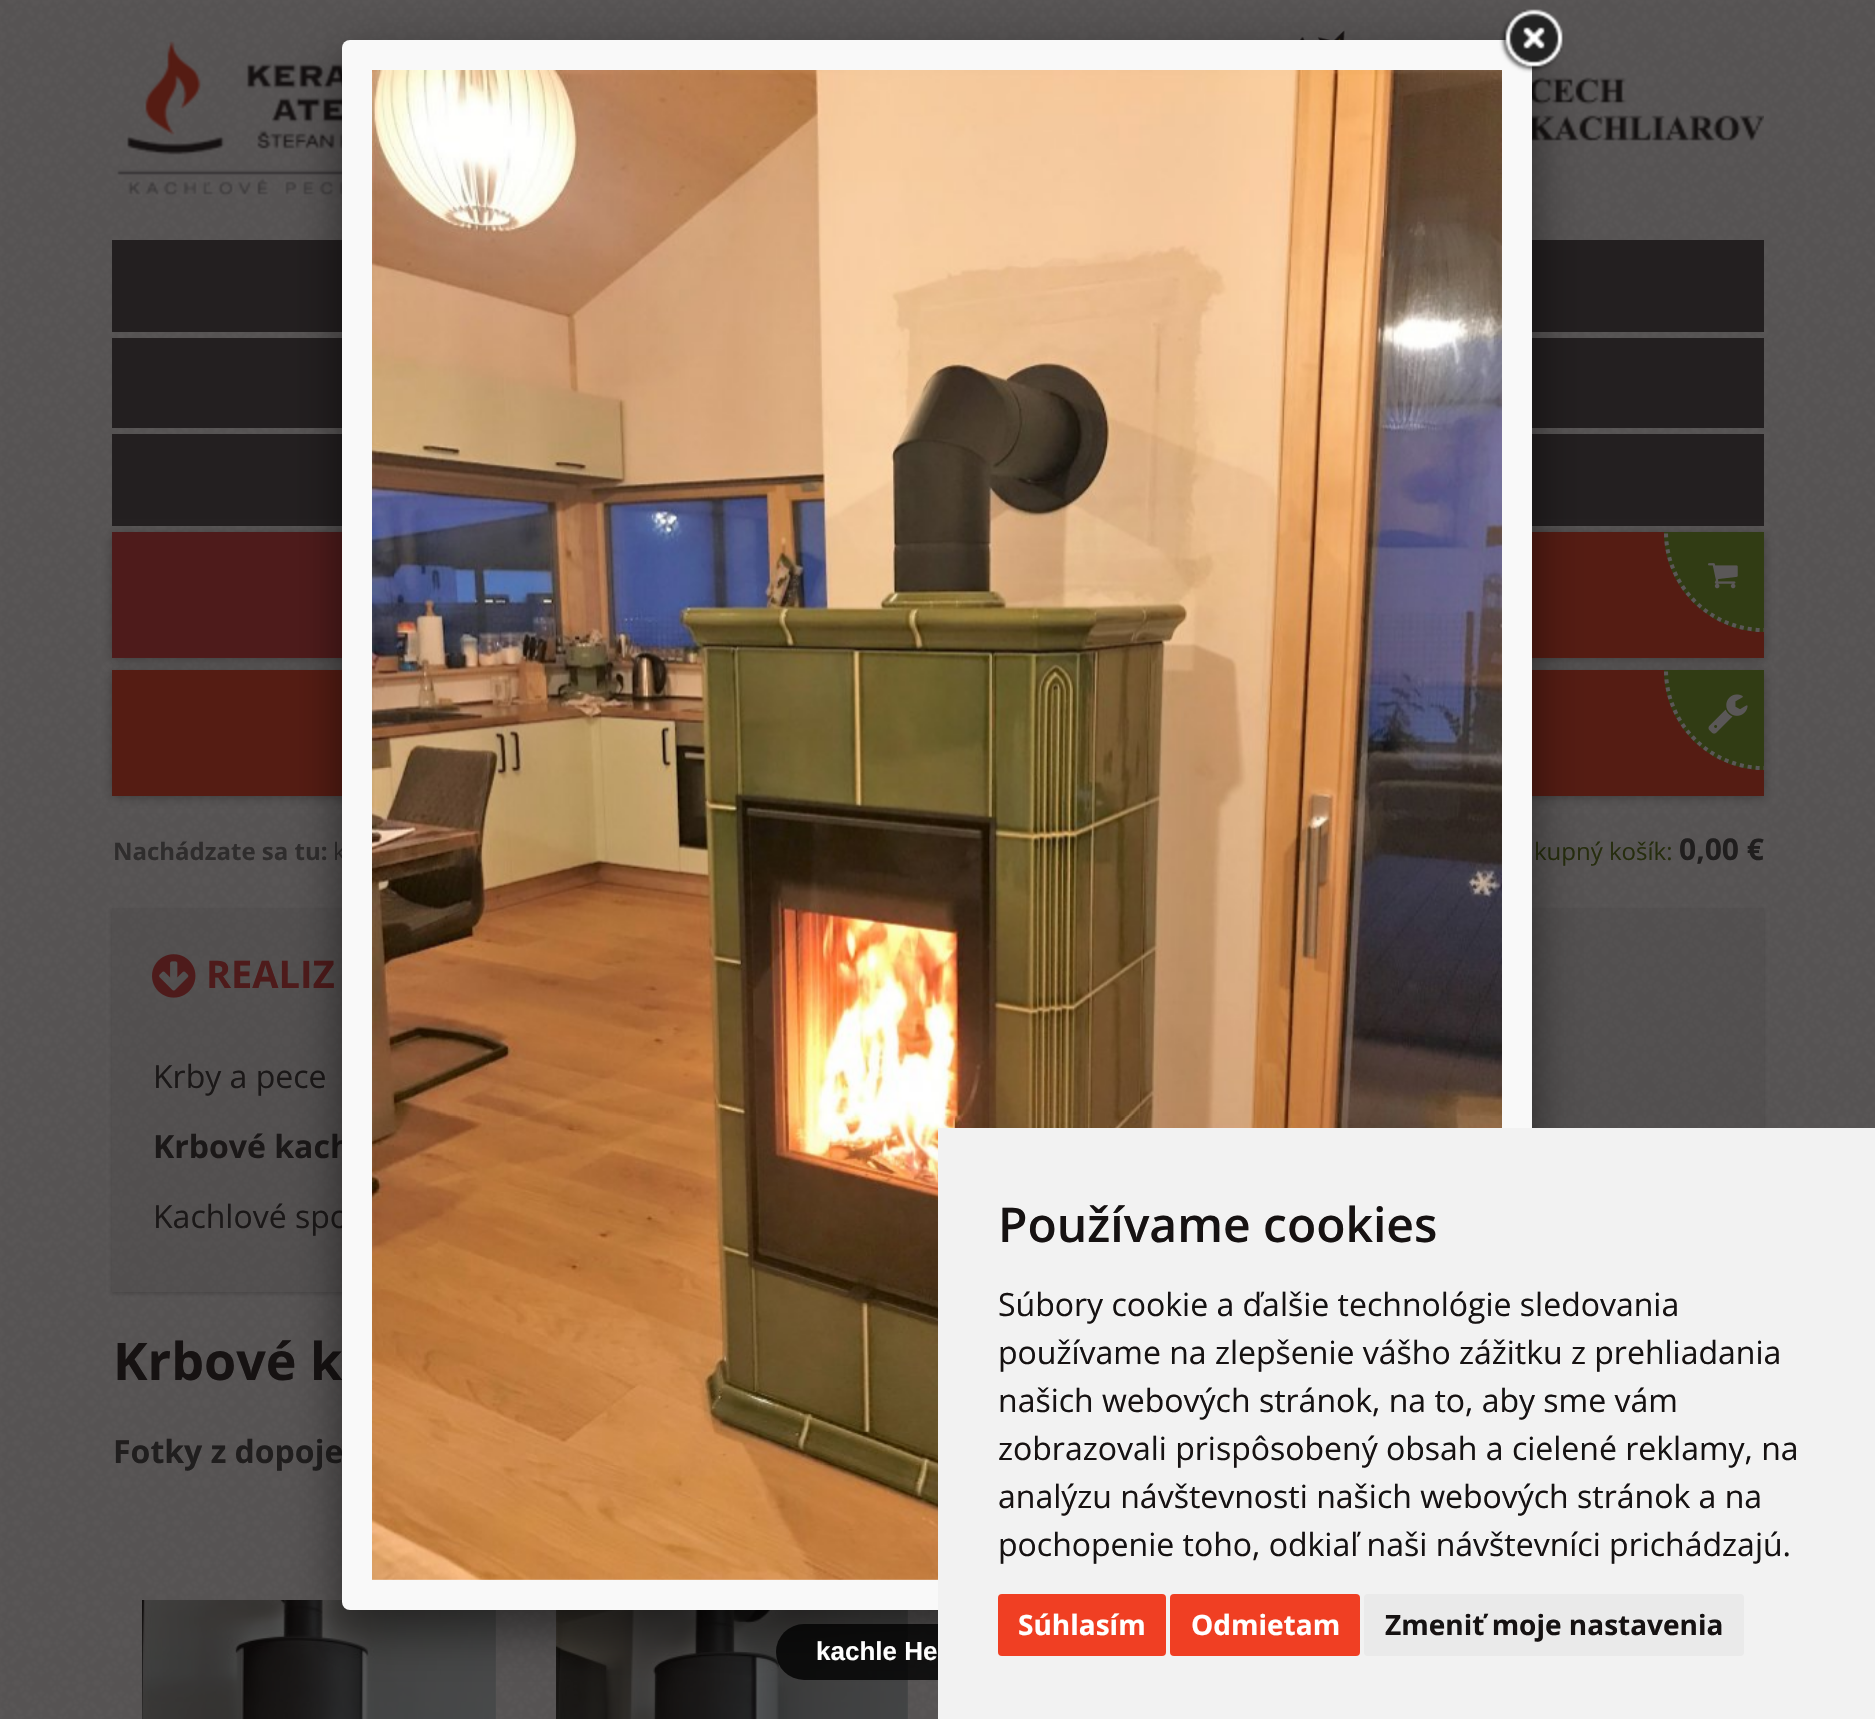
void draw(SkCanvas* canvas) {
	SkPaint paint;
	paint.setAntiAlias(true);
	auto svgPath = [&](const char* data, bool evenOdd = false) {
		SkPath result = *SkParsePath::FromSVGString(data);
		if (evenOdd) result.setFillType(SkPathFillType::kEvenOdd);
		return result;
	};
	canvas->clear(0xffffffff);
	canvas->drawImageRect(SkImages::DeferredFromEncodedData(SkData::MakeFromFileName("img1.png")), SkRect::MakeXYWH(0, 0, 1875, 1719), SkSamplingOptions());
	canvas->drawImageRect(SkImages::DeferredFromEncodedData(SkData::MakeFromFileName("img2.png")), SkRect::MakeXYWH(1298, 30, 47, 10), SkSamplingOptions());
	canvas->drawImageRect(SkImages::DeferredFromEncodedData(SkData::MakeFromFileName("img3.png")), SkRect::MakeXYWH(117, 40, 225, 156), SkSamplingOptions());
	canvas->drawImageRect(SkImages::DeferredFromEncodedData(SkData::MakeFromFileName("img4.png")), SkRect::MakeXYWH(1532, 77, 232, 65), SkSamplingOptions());
	paint.setColor(0xff231f20);
	canvas->drawRect(SkRect::MakeXYWH(112, 240, 230, 92), paint);
	canvas->drawRect(SkRect::MakeXYWH(1532, 240, 232, 92), paint);
	canvas->drawRect(SkRect::MakeXYWH(112, 338, 230, 90), paint);
	canvas->drawRect(SkRect::MakeXYWH(1532, 338, 232, 90), paint);
	canvas->drawRect(SkRect::MakeXYWH(112, 434, 230, 92), paint);
	canvas->drawRect(SkRect::MakeXYWH(1532, 434, 232, 92), paint);
	paint.setColor(0x4a0b0808);
	paint.setMaskFilter(SkMaskFilter::MakeBlur(kNormal_SkBlurStyle, 5));
	canvas->drawRect(SkRect::MakeXYWH(112, 534, 822, 126), paint);
	paint.setMaskFilter(nullptr);
	paint.setColor(0xff4e1b1b);
	canvas->drawRect(SkRect::MakeXYWH(112, 532, 230, 126), paint);
	paint.setColor(0x4a0b0808);
	paint.setMaskFilter(SkMaskFilter::MakeBlur(kNormal_SkBlurStyle, 5));
	canvas->drawRect(SkRect::MakeXYWH(942, 534, 822, 126), paint);
	paint.setMaskFilter(nullptr);
	paint.setColor(0xff551c13);
	canvas->drawRect(SkRect::MakeXYWH(1532, 532, 232, 126), paint);
	paint.setColor(0xff313c14);
	canvas->drawPath(svgPath("M1664 532H1764V632C1709 632 1664 587 1664 532Z"), paint);
	canvas->save();
	canvas->clipRect(SkRect::MakeXYWH(942, 532, 822, 126));
	paint.setStroke(true);
	paint.setStrokeWidth(4);
	paint.setColor(0xff5a5757);
	paint.setPathEffect(SkDashPathEffect::Make({{4, 4}}, 0));
	canvas->drawPath(svgPath("M1764 434C1818 434 1862 478 1862 532C1862 586 1818 630 1764 630C1710 630 1666 586 1666 532C1666 478 1710 434 1764 434Z"), paint);
	paint.setPathEffect(nullptr);
	canvas->restore();
	canvas->drawImageRect(SkImages::DeferredFromEncodedData(SkData::MakeFromFileName("img5.png")), SkRect::MakeXYWH(1708, 563, 30, 26), SkSamplingOptions());
	paint.setStroke(false);
	paint.setColor(0x4a0b0808);
	paint.setMaskFilter(SkMaskFilter::MakeBlur(kNormal_SkBlurStyle, 5));
	canvas->drawRect(SkRect::MakeXYWH(112, 672, 822, 126), paint);
	paint.setMaskFilter(nullptr);
	paint.setColor(0xff551c13);
	canvas->drawRect(SkRect::MakeXYWH(112, 670, 230, 126), paint);
	paint.setColor(0x4a0b0808);
	paint.setMaskFilter(SkMaskFilter::MakeBlur(kNormal_SkBlurStyle, 5));
	canvas->drawRect(SkRect::MakeXYWH(942, 672, 822, 126), paint);
	paint.setMaskFilter(nullptr);
	paint.setColor(0xff551c13);
	canvas->drawRect(SkRect::MakeXYWH(1532, 670, 232, 126), paint);
	paint.setColor(0xff313c14);
	canvas->drawPath(svgPath("M1664 670H1764V770C1709 770 1664 725 1664 670Z"), paint);
	canvas->save();
	canvas->clipRect(SkRect::MakeXYWH(942, 670, 822, 126));
	paint.setStroke(true);
	paint.setColor(0xff5a5757);
	paint.setPathEffect(SkDashPathEffect::Make({{4, 4}}, 0));
	canvas->drawPath(svgPath("M1764 572C1818 572 1862 616 1862 670C1862 724 1818 768 1764 768C1710 768 1666 724 1666 670C1666 616 1710 572 1764 572Z"), paint);
	paint.setPathEffect(nullptr);
	canvas->restore();
	canvas->drawImageRect(SkImages::DeferredFromEncodedData(SkData::MakeFromFileName("img6.png")), SkRect::MakeXYWH(1708, 694, 40, 40), SkSamplingOptions());
	SkFont f1(fontMgr->matchFamilyStyle("Open Sans", SkFontStyle::Bold()), 24);
	f1.setSubpixel(true);
	paint.setStroke(false);
	paint.setColor(0xff2f2d2d);
	canvas->drawString("Nachádzate sa tu:", 113, 860, f1, paint);
	SkFont f2(fontMgr->matchFamilyStyle("Open Sans", SkFontStyle::Normal()), 24);
	f2.setSubpixel(true);
	canvas->drawString("k", 333, 860, f2, paint);
	paint.setColor(0xff262d0e);
	canvas->drawString("kupný košík:", 1534, 860, f2, paint);
	SkFont f3(fontMgr->matchFamilyStyle("Open Sans", SkFontStyle::Bold()), 30);
	f3.setSubpixel(true);
	paint.setColor(0xff201e1e);
	canvas->drawString("0,00 €", 1679, 860, f3, paint);
	canvas->save();
	canvas->clipPath(svgPath("M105 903H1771V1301H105ZM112 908H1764V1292H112Z", true), true);
	paint.setColor(0x330b0808);
	paint.setMaskFilter(SkMaskFilter::MakeBlur(kNormal_SkBlurStyle, 2));
	canvas->drawRect(SkRect::MakeXYWH(112, 910, 1652, 384), paint);
	paint.setMaskFilter(nullptr);
	canvas->restore();
	paint.setColor(0x4d494646);
	canvas->drawRect(SkRect::MakeXYWH(112, 908, 1652, 384), paint);
	canvas->drawImageRect(SkImages::DeferredFromEncodedData(SkData::MakeFromFileName("img7.png")), SkRect::MakeXYWH(152, 954, 44, 44), SkSamplingOptions());
	SkFont f4(fontMgr->matchFamilyStyle("Open Sans", SkFontStyle::Bold()), 38);
	f4.setSubpixel(true);
	paint.setColor(0xff4e1b1b);
	canvas->drawString("REALIZ", 206, 988, f4, paint);
	SkFont f5(fontMgr->matchFamilyStyle("Open Sans", SkFontStyle::Normal()), 32);
	f5.setSubpixel(true);
	paint.setColor(0xff1b1818);
	canvas->drawString("Krby a pece", 153, 1088, f5, paint);
	SkFont f6(fontMgr->matchFamilyStyle("Open Sans", SkFontStyle::Bold()), 32);
	f6.setSubpixel(true);
	canvas->drawString("Krbové kach", 153, 1158, f6, paint);
	canvas->drawString("Kachlové spo", 153, 1228, f5, paint);
	SkFont f7(fontMgr->matchFamilyStyle("Open Sans", SkFontStyle::Bold()), 52);
	f7.setSubpixel(true);
	paint.setColor(0xff161212);
	canvas->drawString("Krbové k", 113, 1380, f7, paint);
	paint.setColor(0xff201e1e);
	canvas->drawString("Fotky z dopoje", 113, 1463, f6, paint);
	canvas->drawImageRect(SkImages::DeferredFromEncodedData(SkData::MakeFromFileName("img8.png")), SkRect::MakeXYWH(142, 1600, 354, 119), SkSamplingOptions());
	canvas->drawImageRect(SkImages::DeferredFromEncodedData(SkData::MakeFromFileName("img9.png")), SkRect::MakeXYWH(556, 1610, 352, 109), SkSamplingOptions());
	paint.setColor(0x80000000);
	paint.setMaskFilter(SkMaskFilter::MakeBlur(kNormal_SkBlurStyle, 25));
	canvas->drawRoundRect(SkRect::MakeXYWH(342, 60, 1190, 1570), 8, 8, paint);
	paint.setMaskFilter(nullptr);
	paint.setColor(0xfff9f9f9);
	canvas->drawRoundRect(SkRect::MakeXYWH(342, 40, 1190, 1570), 8, 8, paint);
	canvas->drawImageRect(SkImages::DeferredFromEncodedData(SkData::MakeFromFileName("img11.png")), SkRect::MakeXYWH(372, 70, 1130, 1510), SkSamplingOptions());
	paint.setColor(0xcc000000);
	canvas->drawRoundRect(SkRect::MakeXYWH(776, 1624, 322, 56), 28, 28, paint);
	paint.setColor(0xfff2f2f2);
	canvas->drawRect(SkRect::MakeXYWH(938, 1128, 937, 591), paint);
	SkFont f8(fontMgr->matchFamilyStyle("Open Sans", SkFontStyle(600, SkFontStyle::kNormal_Width, SkFontStyle::kUpright_Slant)), 48);
	f8.setSubpixel(true);
	paint.setColor(0xff161212);
	canvas->drawString("Používame cookies", 998, 1242, f8, paint);
	canvas->drawString("Súbory cookie a ďalšie technológie sledovania", 998, 1316, f5, paint);
	canvas->drawString("používame na zlepšenie vášho zážitku z prehliadania", 998, 1364, f5, paint);
	canvas->drawString("našich webových stránok, na to, aby sme vám", 998, 1412, f5, paint);
	canvas->drawString("zobrazovali prispôsobený obsah a cielené reklamy, na", 998, 1460, f5, paint);
	canvas->drawString("analýzu návštevnosti našich webových stránok a na", 998, 1508, f5, paint);
	canvas->drawString("pochopenie toho, odkiaľ naši návštevníci prichádzajú.", 998, 1556, f5, paint);
	paint.setColor(0xfff03f23);
	canvas->drawRoundRect(SkRect::MakeXYWH(998, 1594, 168, 62), 4, 4, paint);
	SkFont f9(fontMgr->matchFamilyStyle("Open Sans", SkFontStyle::Bold()), 28);
	f9.setSubpixel(true);
	paint.setColor(0xffffffff);
	canvas->drawString("Súhlasím", 1018, 1635, f9, paint);
	paint.setColor(0xfff03f23);
	canvas->drawRoundRect(SkRect::MakeXYWH(1170, 1594, 190, 62), 4, 4, paint);
	paint.setColor(0xffffffff);
	canvas->drawString("Odmietam", 1191, 1635, f9, paint);
	paint.setColor(0xffeaeaea);
	canvas->drawRoundRect(SkRect::MakeXYWH(1364, 1594, 380, 62), 4, 4, paint);
	paint.setColor(0xff161212);
	canvas->drawString("Zmeniť moje nastavenia", 1385, 1635, f9, paint);
	canvas->drawImageRect(SkImages::DeferredFromEncodedData(SkData::MakeFromFileName("img10.png")), SkRect::MakeXYWH(1499, 9, 65, 64), SkSamplingOptions());
	SkFont f10(fontMgr->matchFamilyStyle("Liberation Sans", SkFontStyle::Bold()), 26);
	f10.setSubpixel(true);
	paint.setColor(0xffffffff);
	canvas->drawString("kachle He", 816, 1660, f10, paint);
}
